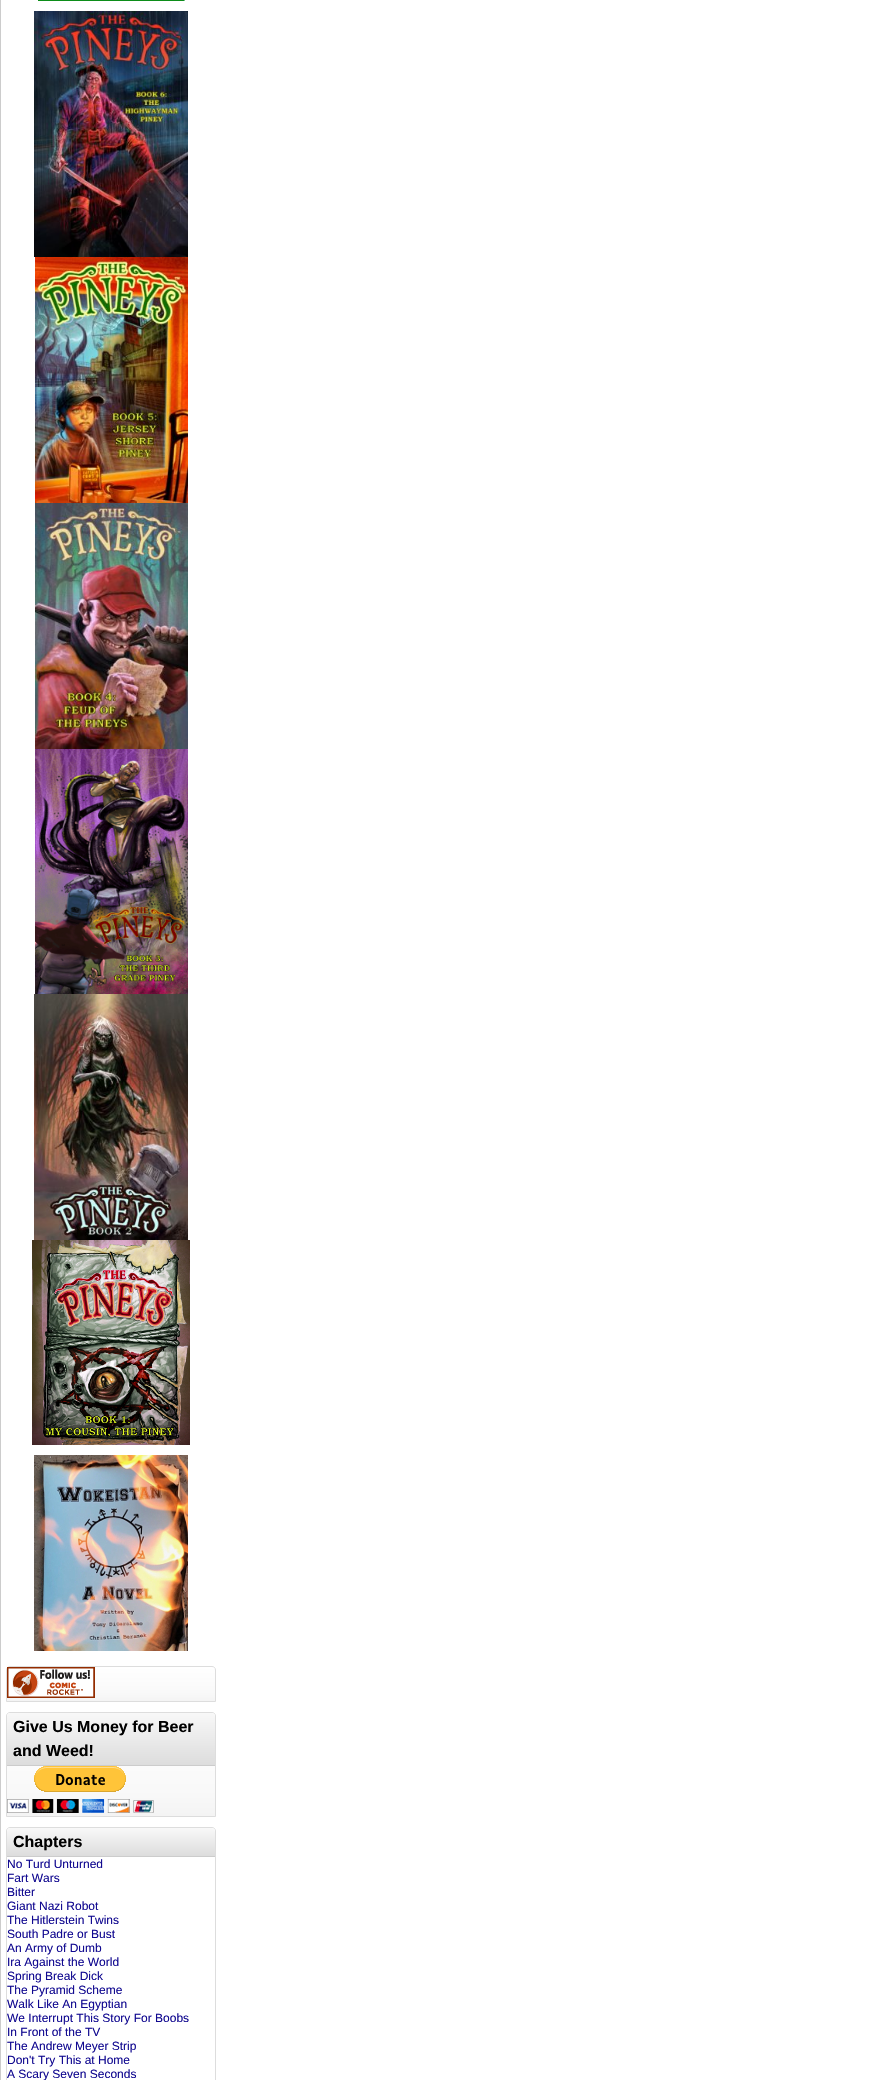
void draw(SkCanvas* canvas) {
	SkPaint paint;
	paint.setAntiAlias(true);
	auto svgPath = [&](const char* data, bool evenOdd = false) {
		SkPath result = *SkParsePath::FromSVGString(data);
		if (evenOdd) result.setFillType(SkPathFillType::kEvenOdd);
		return result;
	};
	canvas->clear(0xffffffff);
	paint.setStroke(true);
	paint.setStrokeWidth(1);
	paint.setColor(0xffcccccc);
	canvas->drawRect(SkRect::MakeXYWH(0.5, -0.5, 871, 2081), paint);
	canvas->drawImageRect(SkImages::DeferredFromEncodedData(SkData::MakeFromFileName("img1.png")), SkRect::MakeXYWH(38, 0, 147, 1), SkSamplingOptions());
	canvas->drawImageRect(SkImages::DeferredFromEncodedData(SkData::MakeFromFileName("img2.png")), SkRect::MakeXYWH(34, 11, 154, 246), SkSamplingOptions());
	canvas->drawImageRect(SkImages::DeferredFromEncodedData(SkData::MakeFromFileName("img3.png")), SkRect::MakeXYWH(35, 257, 153, 246), SkSamplingOptions());
	canvas->drawImageRect(SkImages::DeferredFromEncodedData(SkData::MakeFromFileName("img4.png")), SkRect::MakeXYWH(35, 503, 153, 246), SkSamplingOptions());
	canvas->drawImageRect(SkImages::DeferredFromEncodedData(SkData::MakeFromFileName("img5.png")), SkRect::MakeXYWH(35, 749, 153, 245), SkSamplingOptions());
	canvas->drawImageRect(SkImages::DeferredFromEncodedData(SkData::MakeFromFileName("img6.png")), SkRect::MakeXYWH(34, 994, 154, 246), SkSamplingOptions());
	canvas->drawImageRect(SkImages::DeferredFromEncodedData(SkData::MakeFromFileName("img7.png")), SkRect::MakeXYWH(32, 1240, 158, 205), SkSamplingOptions());
	canvas->drawImageRect(SkImages::DeferredFromEncodedData(SkData::MakeFromFileName("img8.png")), SkRect::MakeXYWH(34, 1455, 154, 196), SkSamplingOptions());
	canvas->save();
	canvas->clipPath(svgPath("M10 1666H212C214 1666 216 1668 216 1670V1702H6V1670C6 1668 8 1666 10 1666Z"), true);
	paint.setStroke(false);
	{
		const SkColor colors[] = {0xffffffff, 0xfff9f9f9, 0xfff4f4f4};
		const float stops[] = {0, 0.75, 1};
		const SkPoint ends[] = {{111, 1667}, {111, 1701}};
		paint.setShader(SkGradientShader::MakeLinear(ends, colors, stops, 3, SkTileMode::kClamp));
		paint.setAlpha(255);
	}
	canvas->drawRect(SkRect::MakeXYWH(6, 1667, 210, 34), paint);
	canvas->restore();
	paint.setStroke(true);
	paint.setShader(nullptr);
	paint.setColor(0xffdddddd);
	canvas->drawPath(svgPath("M10 1666.5H212C214 1666.5 215.5 1668 215.5 1670V1701.5H6.5V1670C6.5 1668 8 1666.5 10 1666.5Z"), paint);
	canvas->drawImageRect(SkImages::DeferredFromEncodedData(SkData::MakeFromFileName("img9.png")), SkRect::MakeXYWH(7, 1667, 88, 31), SkSamplingOptions());
	canvas->save();
	canvas->clipPath(svgPath("M10 1712H212C214 1712 216 1714 216 1716V1817H6V1716C6 1714 8 1712 10 1712Z"), true);
	paint.setStroke(false);
	{
		const SkColor colors[] = {0xffffffff, 0xfff9f9f9, 0xfff4f4f4};
		const float stops[] = {0, 0.75, 1};
		const SkPoint ends[] = {{111, 1713}, {111, 1816}};
		paint.setShader(SkGradientShader::MakeLinear(ends, colors, stops, 3, SkTileMode::kClamp));
		paint.setAlpha(255);
	}
	canvas->drawRect(SkRect::MakeXYWH(6, 1713, 210, 103), paint);
	canvas->restore();
	paint.setStroke(true);
	paint.setShader(nullptr);
	paint.setColor(0xffdddddd);
	canvas->drawPath(svgPath("M10 1712.5H212C214 1712.5 215.5 1714 215.5 1716V1816.5H6.5V1716C6.5 1714 8 1712.5 10 1712.5Z"), paint);
	paint.setStroke(false);
	{
		const SkColor colors[] = {0xfff8f8f8, 0xffededed, 0xffdddddd};
		const float stops[] = {0, 0.4, 1};
		const SkPoint ends[] = {{111, 1713}, {111, 1765}};
		paint.setShader(SkGradientShader::MakeLinear(ends, colors, stops, 3, SkTileMode::kClamp));
		paint.setAlpha(255);
	}
	canvas->drawPath(svgPath("M11 1713H211C213 1713 215 1715 215 1717V1765H7V1717C7 1715 9 1713 11 1713Z"), paint);
	paint.setShader(nullptr);
	paint.setColor(0xffcccccc);
	canvas->drawRect(SkRect::MakeXYWH(7, 1765, 208, 1), paint);
	SkFont f1(fontMgr->matchFamilyStyle("Liberation Sans", SkFontStyle::Bold()), 16);
	f1.setSubpixel(true);
	paint.setColor(0xff000000);
	canvas->drawString("Give Us Money for Beer", 13, 1732, f1, paint);
	canvas->drawString("and Weed!", 13, 1756, f1, paint);
	canvas->drawImageRect(SkImages::DeferredFromEncodedData(SkData::MakeFromFileName("img10.png")), SkRect::MakeXYWH(7, 1766, 147, 47), SkSamplingOptions());
	paint.setStroke(true);
	paint.setColor(0xffdddddd);
	canvas->drawPath(svgPath("M10 1827.5H212C214 1827.5 215.5 1829 215.5 1831V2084.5H6.5V1831C6.5 1829 8 1827.5 10 1827.5Z"), paint);
	paint.setStroke(false);
	{
		const SkColor colors[] = {0xfff8f8f8, 0xffededed, 0xffdddddd};
		const float stops[] = {0, 0.4, 1};
		const SkPoint ends[] = {{111, 1828}, {111, 1856}};
		paint.setShader(SkGradientShader::MakeLinear(ends, colors, stops, 3, SkTileMode::kClamp));
		paint.setAlpha(255);
	}
	canvas->drawPath(svgPath("M11 1828H211C213 1828 215 1830 215 1832V1856H7V1832C7 1830 9 1828 11 1828Z"), paint);
	paint.setShader(nullptr);
	paint.setColor(0xffcccccc);
	canvas->drawRect(SkRect::MakeXYWH(7, 1856, 208, 1), paint);
	paint.setColor(0xff000000);
	canvas->drawString("Chapters", 13, 1847, f1, paint);
	SkFont f2(fontMgr->matchFamilyStyle("Liberation Sans", SkFontStyle::Normal()), 12);
	f2.setSubpixel(true);
	paint.setColor(0xff110990);
	canvas->drawString("No Turd Unturned", 7, 1868, f2, paint);
	canvas->drawString("Fart Wars", 7, 1882, f2, paint);
	canvas->drawString("Bitter", 7, 1896, f2, paint);
	canvas->drawString("Giant Nazi Robot", 7, 1910, f2, paint);
	canvas->drawString("The Hitlerstein Twins", 7, 1924, f2, paint);
	canvas->drawString("South Padre or Bust", 7, 1938, f2, paint);
	canvas->drawString("An Army of Dumb", 7, 1952, f2, paint);
	canvas->drawString("Ira Against the World", 7, 1966, f2, paint);
	canvas->drawString("Spring Break Dick", 7, 1980, f2, paint);
	canvas->drawString("The Pyramid Scheme", 7, 1994, f2, paint);
	canvas->drawString("Walk Like An Egyptian", 7, 2008, f2, paint);
	canvas->drawString("We Interrupt This Story For Boobs", 7, 2022, f2, paint);
	canvas->drawString("In Front of the TV", 7, 2036, f2, paint);
	canvas->drawString("The Andrew Meyer Strip", 7, 2050, f2, paint);
	canvas->drawString("Don't Try This at Home", 7, 2064, f2, paint);
	canvas->drawString("A Scary Seven Seconds", 7, 2078, f2, paint);
}
